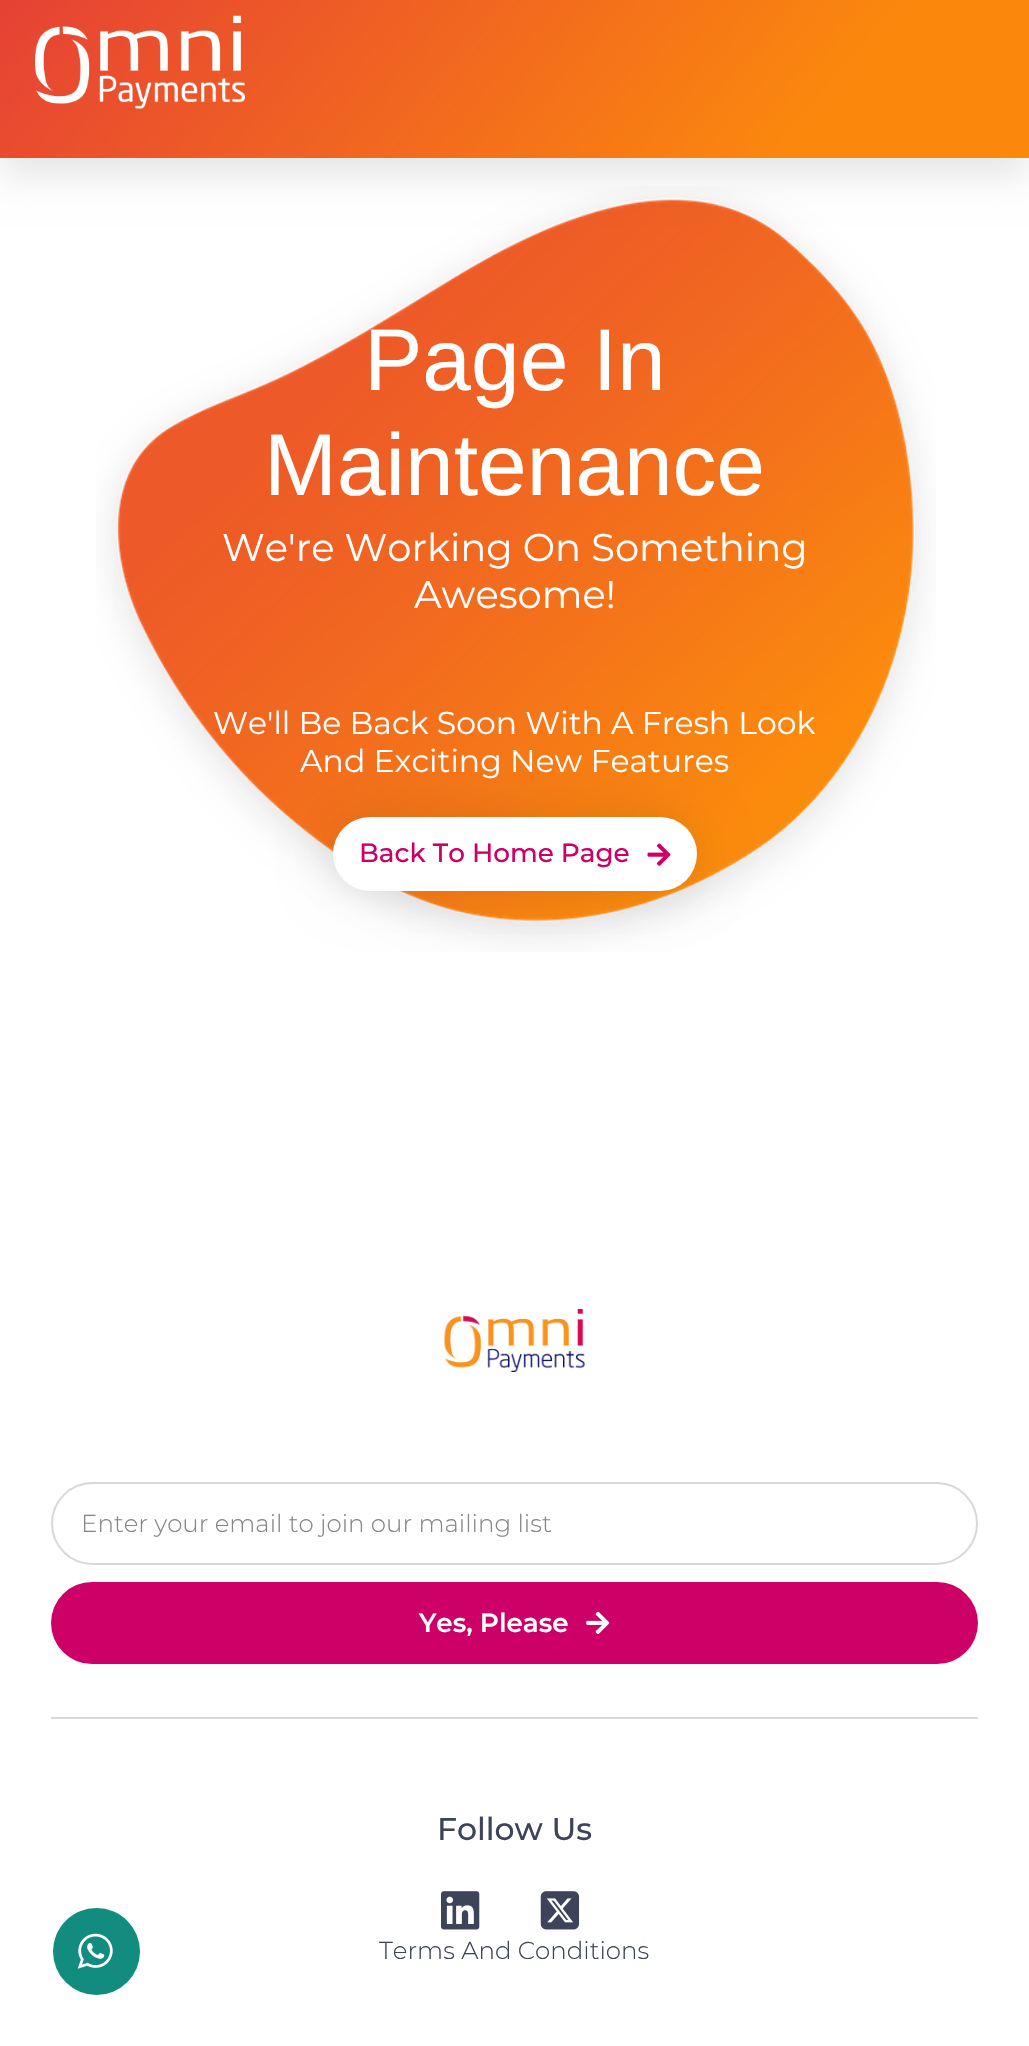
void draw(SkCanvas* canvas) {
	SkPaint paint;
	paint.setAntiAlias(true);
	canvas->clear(0xffffffff);
	canvas->drawImageRect(SkImages::DeferredFromEncodedData(SkData::MakeFromFileName("img2.png")), SkRect::MakeXYWH(96, 186, 840, 766), SkSamplingOptions());
	paint.setColor(0x1a000000);
	paint.setMaskFilter(SkMaskFilter::MakeBlur(kNormal_SkBlurStyle, 17.5));
	canvas->drawRect(SkRect::MakeXYWH(0, 18, 1029, 157), paint);
	paint.setMaskFilter(nullptr);
	{
		const SkColor colors[] = {0xffe64135, 0xfffb880d};
		const float stops[] = {0, 0.79};
		const SkPoint ends[] = {{174, -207}, {855, 365}};
		paint.setShader(SkGradientShader::MakeLinear(ends, colors, stops, 2, SkTileMode::kClamp));
		paint.setAlpha(255);
	}
	canvas->drawRect(SkRect::MakeXYWH(0, 0, 1029, 158), paint);
	canvas->drawImageRect(SkImages::DeferredFromEncodedData(SkData::MakeFromFileName("img1.png")), SkRect::MakeXYWH(35, 15, 210, 94), SkSamplingOptions());
	SkFont f1(fontMgr->matchFamilyStyle("Liberation Sans", SkFontStyle::Normal()), 87.5);
	f1.setSubpixel(true);
	paint.setShader(nullptr);
	paint.setColor(0xffffffff);
	canvas->drawString("Page In", 364, 390, f1, paint);
	canvas->drawString("Maintenance", 264, 495, f1, paint);
	SkFont f2(fontMgr->matchFamilyStyle("Montserrat", SkFontStyle::Normal()), 38.5);
	f2.setSubpixel(true);
	canvas->drawString("We're Working On Something", 222, 561, f2, paint);
	canvas->drawString("Awesome!", 414, 608, f2, paint);
	SkFont f3(fontMgr->matchFamilyStyle("Montserrat", SkFontStyle::Normal()), 31.5);
	f3.setSubpixel(true);
	canvas->drawString("We'll Be Back Soon With A Fresh Look", 213, 734, f3, paint);
	canvas->drawString("And Exciting New Features", 300, 772, f3, paint);
	paint.setColor(0x1a000000);
	paint.setMaskFilter(SkMaskFilter::MakeBlur(kNormal_SkBlurStyle, 26));
	canvas->drawRoundRect(SkRect::MakeXYWH(333, 817, 364, 74), 37, 37, paint);
	paint.setMaskFilter(nullptr);
	paint.setColor(0xffffffff);
	canvas->drawRoundRect(SkRect::MakeXYWH(333, 817, 364, 74), 37, 37, paint);
	SkFont f4(fontMgr->matchFamilyStyle("Montserrat", SkFontStyle(500, SkFontStyle::kNormal_Width, SkFontStyle::kUpright_Slant)), 26.25);
	f4.setSubpixel(true);
	paint.setColor(0xffcc0066);
	canvas->drawString("Back To Home Page", 359, 862, f4, paint);
	canvas->drawImageRect(SkImages::DeferredFromEncodedData(SkData::MakeFromFileName("img3.png")), SkRect::MakeXYWH(647, 843, 24, 23), SkSamplingOptions());
	canvas->drawImageRect(SkImages::DeferredFromEncodedData(SkData::MakeFromFileName("img4.png")), SkRect::MakeXYWH(444, 1309, 141, 63), SkSamplingOptions());
	paint.setStroke(true);
	paint.setStrokeWidth(2);
	paint.setColor(0xffd8d8d8);
	canvas->drawRoundRect(SkRect::MakeXYWH(52, 1483, 925, 81), 40.5, 40.5, paint);
	SkFont f5(fontMgr->matchFamilyStyle("Montserrat", SkFontStyle(300, SkFontStyle::kNormal_Width, SkFontStyle::kUpright_Slant)), 24.5);
	f5.setSubpixel(true);
	paint.setStroke(false);
	paint.setColor(0xff868686);
	canvas->drawString("Enter your email to join our mailing list", 81, 1532, f5, paint);
	paint.setColor(0xffcc0066);
	canvas->drawRoundRect(SkRect::MakeXYWH(51, 1582, 927, 82), 41, 41, paint);
	SkFont f6(fontMgr->matchFamilyStyle("Montserrat", SkFontStyle(600, SkFontStyle::kNormal_Width, SkFontStyle::kUpright_Slant)), 26.25);
	f6.setSubpixel(true);
	paint.setColor(0xffffffff);
	canvas->drawString("Yes, Please", 419, 1632, f6, paint);
	canvas->drawImageRect(SkImages::DeferredFromEncodedData(SkData::MakeFromFileName("img5.png")), SkRect::MakeXYWH(586, 1611, 24, 23), SkSamplingOptions());
	paint.setColor(0xffd8d8d8);
	canvas->drawRect(SkRect::MakeXYWH(51, 1717, 927, 2), paint);
	SkFont f7(fontMgr->matchFamilyStyle("Montserrat", SkFontStyle(500, SkFontStyle::kNormal_Width, SkFontStyle::kUpright_Slant)), 31.5);
	f7.setSubpixel(true);
	paint.setColor(0xff3d4459);
	canvas->drawString("Follow Us", 437, 1840, f7, paint);
	canvas->drawImageRect(SkImages::DeferredFromEncodedData(SkData::MakeFromFileName("img6.png")), SkRect::MakeXYWH(441, 1891, 39, 39), SkSamplingOptions());
	canvas->drawImageRect(SkImages::DeferredFromEncodedData(SkData::MakeFromFileName("img7.png")), SkRect::MakeXYWH(540, 1891, 40, 39), SkSamplingOptions());
	canvas->drawString("Terms And Conditions", 379, 1959, f5, paint);
	paint.setColor(0xff118c7e);
	canvas->drawCircle(96.5, 1951.5, 43.5, paint);
	canvas->drawImageRect(SkImages::DeferredFromEncodedData(SkData::MakeFromFileName("img8.png")), SkRect::MakeXYWH(77, 1933, 36, 36), SkSamplingOptions());
}
